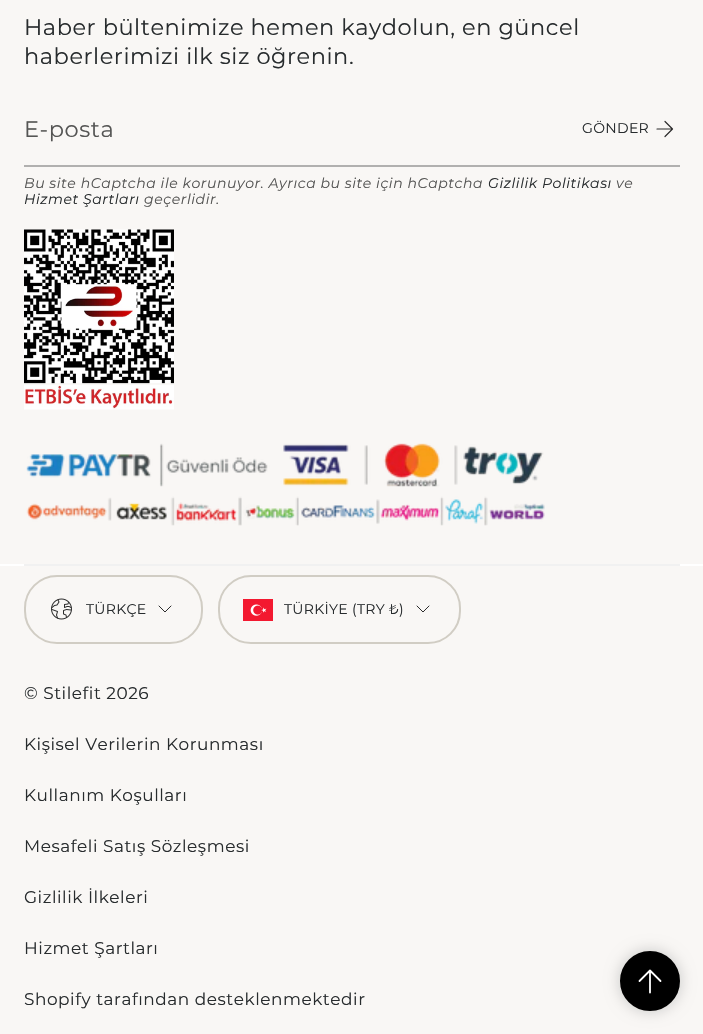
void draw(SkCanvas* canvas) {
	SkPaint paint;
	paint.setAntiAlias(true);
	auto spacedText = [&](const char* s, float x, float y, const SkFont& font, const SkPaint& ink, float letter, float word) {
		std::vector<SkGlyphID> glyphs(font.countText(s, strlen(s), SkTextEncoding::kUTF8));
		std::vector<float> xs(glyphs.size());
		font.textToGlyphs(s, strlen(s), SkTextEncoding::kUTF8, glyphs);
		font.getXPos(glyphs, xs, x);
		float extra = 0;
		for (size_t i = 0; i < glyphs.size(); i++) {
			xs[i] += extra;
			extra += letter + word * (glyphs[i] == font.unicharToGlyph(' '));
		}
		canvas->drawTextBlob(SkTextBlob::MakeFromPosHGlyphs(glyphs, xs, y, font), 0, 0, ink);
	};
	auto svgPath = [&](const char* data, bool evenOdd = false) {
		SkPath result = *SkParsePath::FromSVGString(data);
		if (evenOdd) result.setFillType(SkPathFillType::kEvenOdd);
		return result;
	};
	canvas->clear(0xffffffff);
	paint.setColor(0xfff9f7f5);
	canvas->drawRect(SkRect::MakeXYWH(0, 0, 703, 564), paint);
	SkFont f1(fontMgr->matchFamilyStyle("Montserrat", SkFontStyle::Normal()), 22.5);
	f1.setSubpixel(true);
	paint.setColor(0xff282c2e);
	spacedText("Haber bültenimize hemen kaydolun, en güncel", 24, 35, f1, paint, 0.55, 0);
	spacedText("haberlerimizi ilk siz öğrenin.", 24, 64, f1, paint, 0.55, 0);
	paint.setColor(0xffb1b0af);
	canvas->drawRect(SkRect::MakeXYWH(24, 165, 656, 2), paint);
	paint.setColor(0xff555554);
	spacedText("E-posta", 24, 137, f1, paint, 0.55, 0);
	SkFont f2(fontMgr->matchFamilyStyle("Montserrat", SkFontStyle::Normal()), 14.05);
	f2.setSubpixel(true);
	paint.setColor(0xff282c2e);
	spacedText("GÖNDER", 582, 133, f2, paint, 0.3, 0);
	paint.setStroke(true);
	paint.setStrokeWidth(1.2);
	paint.setStrokeCap(SkPaint::kRound_Cap);
	paint.setStrokeJoin(SkPaint::kRound_Join);
	paint.setColor(0xff2c2c2c);
	canvas->drawPath(svgPath("M657 129H672.5M672.5 129L665 121.5M672.5 129L665 136.5"), paint);
	SkFont f3(fontMgr->matchFamilyStyle("Montserrat", SkFontStyle::Italic()), 14.05);
	f3.setSubpixel(true);
	paint.setStroke(false);
	paint.setColor(0xff555554);
	spacedText("Bu site hCaptcha ile korunuyor. Ayrıca bu site için hCaptcha", 24, 188, f3, paint, 0.55, 0);
	paint.setColor(0xff282c2e);
	spacedText("Gizlilik Politikası", 488, 188, f3, paint, 0.55, 0);
	paint.setColor(0xff555554);
	spacedText("ve", 616, 188, f3, paint, 0.55, 0);
	paint.setColor(0xff282c2e);
	spacedText("Hizmet Şartları", 24, 204, f3, paint, 0.55, 0);
	paint.setColor(0xff555554);
	spacedText("geçerlidir.", 144, 204, f3, paint, 0.55, 0);
	canvas->drawImageRect(SkImages::DeferredFromEncodedData(SkData::MakeFromFileName("img1.png")), SkRect::MakeXYWH(24, 229, 150, 181), SkSamplingOptions());
	canvas->drawImageRect(SkImages::DeferredFromEncodedData(SkData::MakeFromFileName("img2.png")), SkRect::MakeXYWH(26, 443, 519, 83), SkSamplingOptions());
	paint.setColor(0xfff1f1f1);
	canvas->drawRect(SkRect::MakeXYWH(24, 564, 656, 2), paint);
	paint.setColor(0xfff9f7f5);
	canvas->drawRect(SkRect::MakeXYWH(0, 566, 703, 468), paint);
	paint.setStroke(true);
	paint.setStrokeWidth(2);
	paint.setStrokeCap(SkPaint::kButt_Cap);
	paint.setStrokeJoin(SkPaint::kMiter_Join);
	paint.setColor(0xffd1cdc4);
	canvas->drawRoundRect(SkRect::MakeXYWH(25, 576, 177, 67), 32, 32, paint);
	canvas->drawImageRect(SkImages::DeferredFromEncodedData(SkData::MakeFromFileName("img3.png")), SkRect::MakeXYWH(51, 598, 21, 22), SkSamplingOptions());
	paint.setStroke(false);
	paint.setColor(0xff282c2e);
	spacedText("TÜRKÇE", 86, 614, f2, paint, 0.3, 0);
	paint.setStroke(true);
	paint.setStrokeWidth(1);
	paint.setStrokeCap(SkPaint::kRound_Cap);
	paint.setStrokeJoin(SkPaint::kRound_Join);
	paint.setColor(0xff2c2c2c);
	canvas->drawPath(svgPath("M159 606L165 612L171 606"), paint);
	paint.setStrokeWidth(2);
	paint.setStrokeCap(SkPaint::kButt_Cap);
	paint.setStrokeJoin(SkPaint::kMiter_Join);
	paint.setColor(0xffd1cdc4);
	canvas->drawRoundRect(SkRect::MakeXYWH(219, 576, 241, 67), 32, 32, paint);
	canvas->drawImageRect(SkImages::DeferredFromEncodedData(SkData::MakeFromFileName("img4.png")), SkRect::MakeXYWH(243, 599, 30, 22), SkSamplingOptions());
	paint.setStroke(false);
	paint.setColor(0xff282c2e);
	spacedText("TÜRKİYE (TRY ₺)", 284, 614, f2, paint, 0.3, 0);
	paint.setStroke(true);
	paint.setStrokeWidth(1);
	paint.setStrokeCap(SkPaint::kRound_Cap);
	paint.setStrokeJoin(SkPaint::kRound_Join);
	paint.setColor(0xff2c2c2c);
	canvas->drawPath(svgPath("M417 606L423 612L429 606"), paint);
	SkFont f4(fontMgr->matchFamilyStyle("Montserrat", SkFontStyle::Normal()), 16.9);
	f4.setSubpixel(true);
	paint.setStroke(false);
	paint.setColor(0xff282c2e);
	spacedText("© Stilefit 2026", 24, 699, f4, paint, 0.55, 0);
	spacedText("Kişisel Verilerin Korunması", 24, 750, f4, paint, 0.55, 0);
	spacedText("Kullanım Koşulları", 24, 801, f4, paint, 0.55, 0);
	spacedText("Mesafeli Satış Sözleşmesi", 24, 852, f4, paint, 0.55, 0);
	spacedText("Gizlilik İlkeleri", 24, 903, f4, paint, 0.55, 0);
	spacedText("Hizmet Şartları", 24, 954, f4, paint, 0.55, 0);
	spacedText("Shopify tarafından desteklenmektedir", 24, 1005, f4, paint, 0.55, 0);
	paint.setColor(0x33000000);
	paint.setMaskFilter(SkMaskFilter::MakeBlur(kNormal_SkBlurStyle, 7.5));
	canvas->drawRoundRect(SkRect::MakeXYWH(620, 951, 60, 60), 30, 30, paint);
	paint.setMaskFilter(nullptr);
	paint.setColor(0xff000000);
	canvas->drawCircle(650, 981, 29, paint);
	paint.setStroke(true);
	paint.setStrokeWidth(2);
	paint.setStrokeCap(SkPaint::kButt_Cap);
	paint.setStrokeJoin(SkPaint::kMiter_Join);
	canvas->drawCircle(650, 981, 29, paint);
	paint.setStrokeWidth(1.8);
	paint.setStrokeCap(SkPaint::kRound_Cap);
	paint.setStrokeJoin(SkPaint::kRound_Join);
	paint.setColor(0xffffffff);
	canvas->drawPath(svgPath("M650 992.5V970.5M650 970.5L660.5 981M650 970.5L639.5 981"), paint);
}
